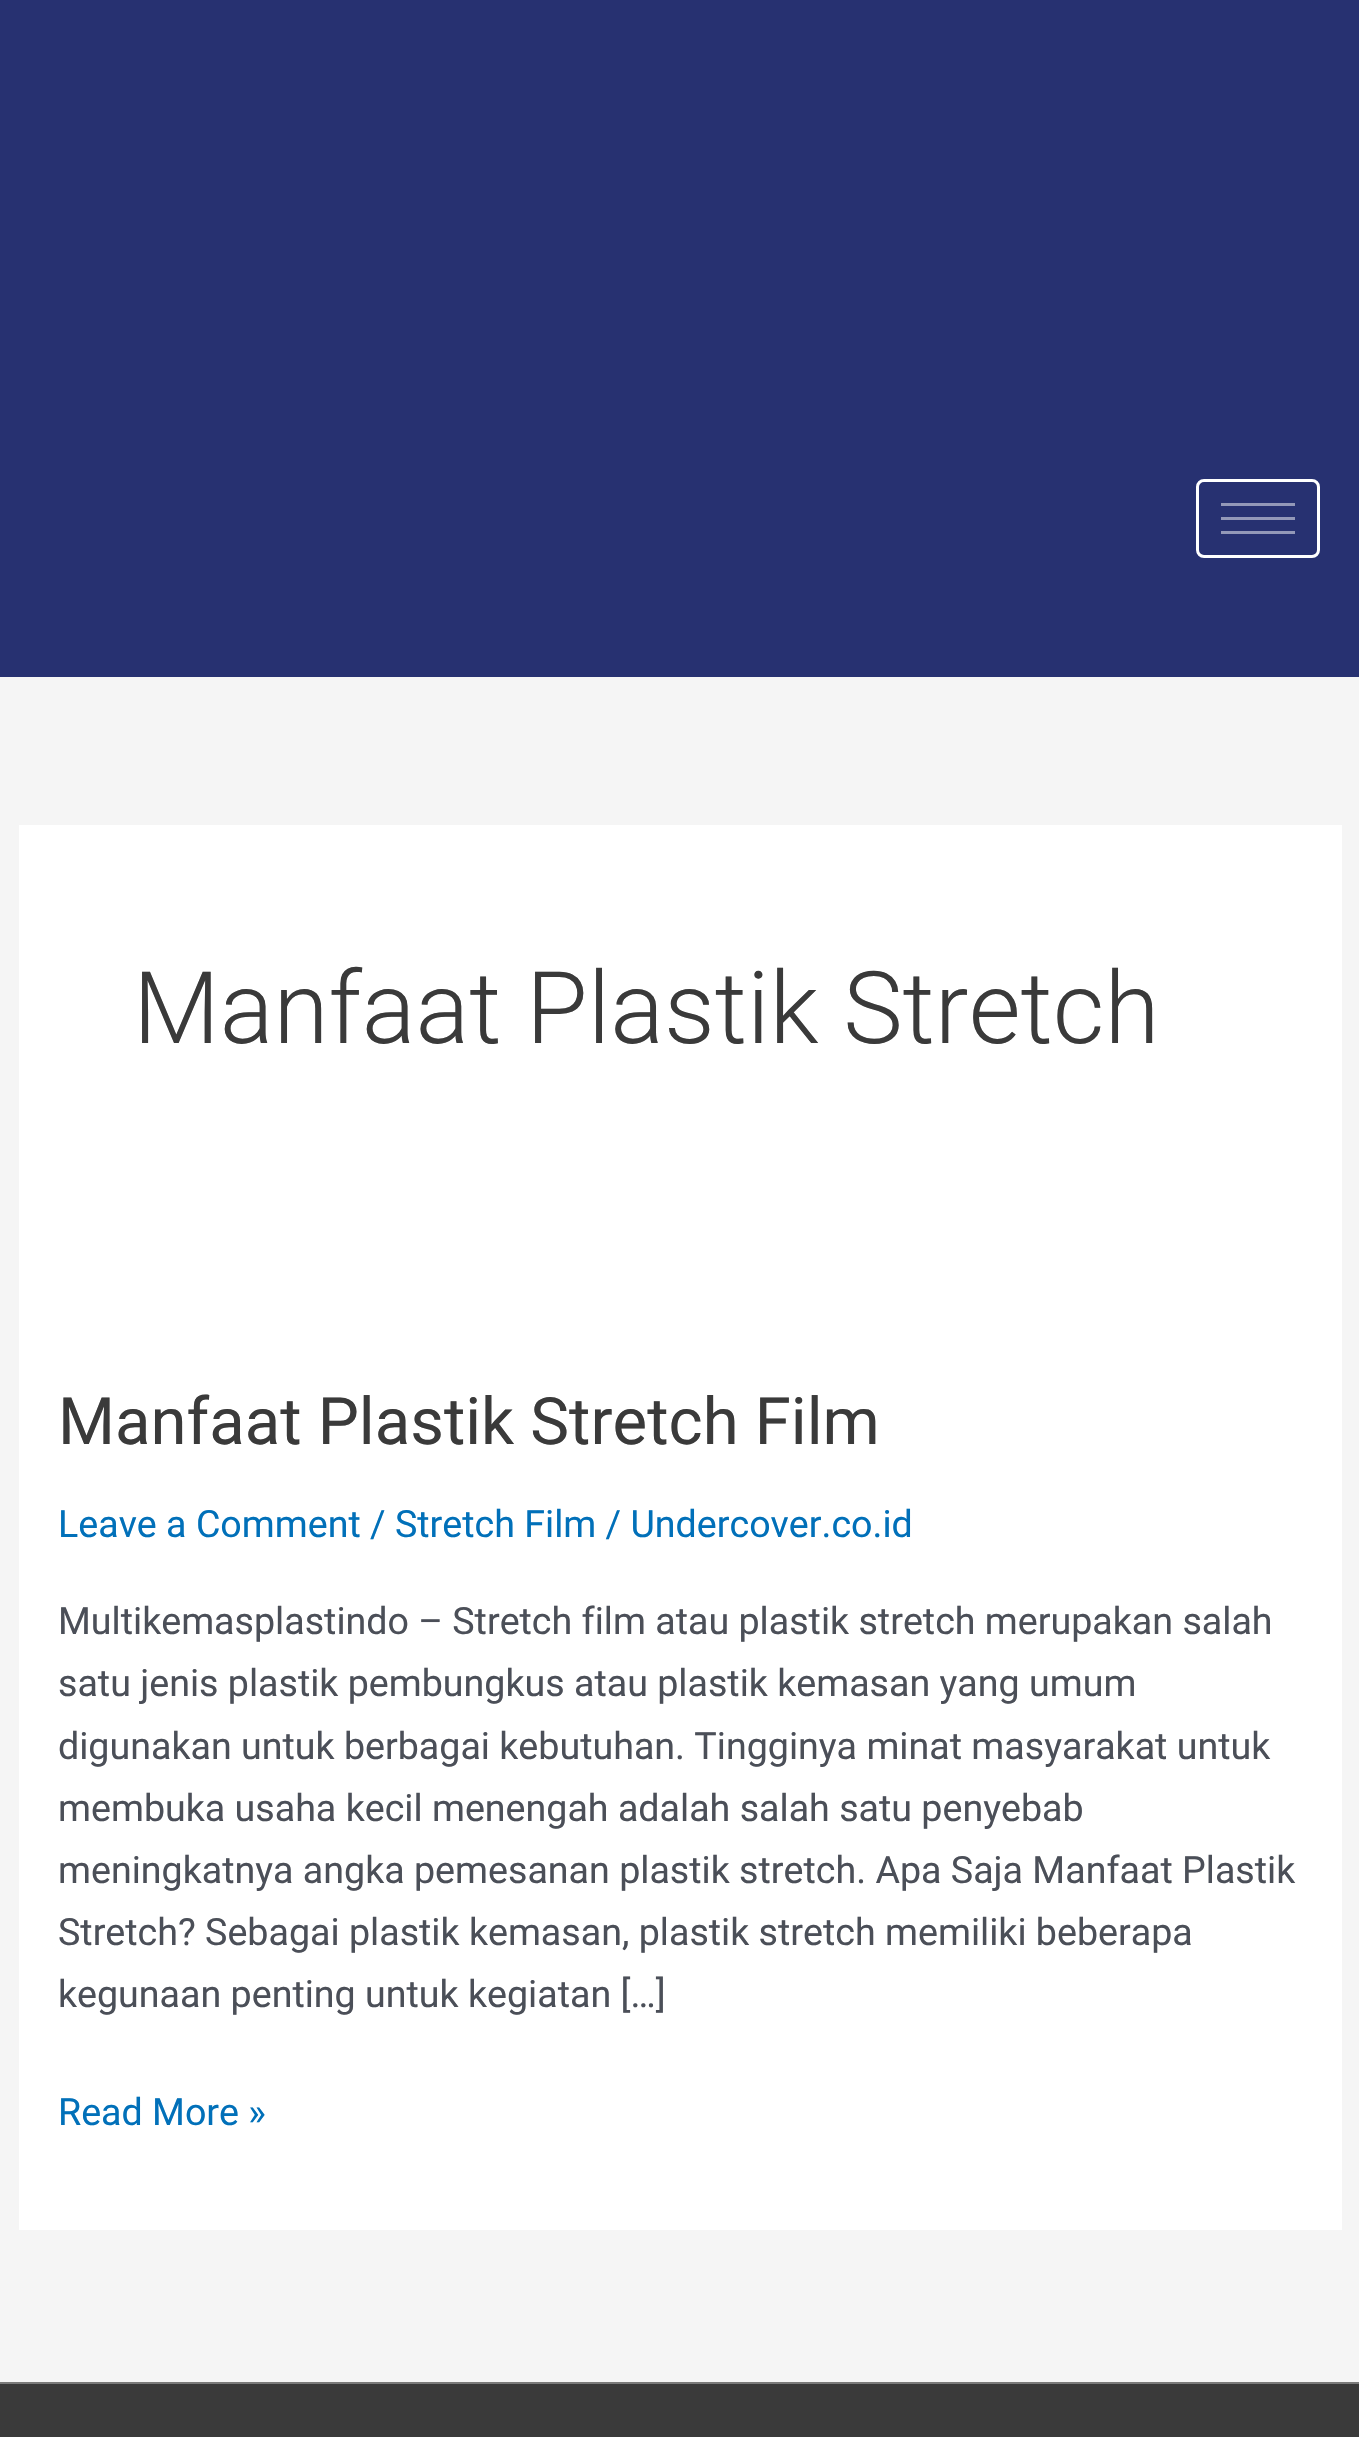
void draw(SkCanvas* canvas) {
	SkPaint paint;
	paint.setAntiAlias(true);
	canvas->clear(0xfff5f5f5);
	paint.setColor(0xff273171);
	canvas->drawRect(SkRect::MakeXYWH(0, 0, 1359, 677), paint);
	paint.setStroke(true);
	paint.setStrokeWidth(3);
	paint.setColor(0xffffffff);
	canvas->drawRoundRect(SkRect::MakeXYWH(1197.5, 480.5, 121, 76), 6.5, 6.5, paint);
	paint.setStroke(false);
	paint.setColor(0xff9398b8);
	canvas->drawRect(SkRect::MakeXYWH(1221, 503, 74, 3), paint);
	canvas->drawRect(SkRect::MakeXYWH(1221, 517, 74, 3), paint);
	canvas->drawRect(SkRect::MakeXYWH(1221, 531, 74, 3), paint);
	paint.setColor(0xffffffff);
	canvas->drawRect(SkRect::MakeXYWH(19, 825, 1323, 1405), paint);
	SkFont f1(fontMgr->matchFamilyStyle("Roboto", SkFontStyle(300, SkFontStyle::kNormal_Width, SkFontStyle::kUpright_Slant)), 100.25);
	f1.setSubpixel(true);
	paint.setColor(0xff3a3a3a);
	canvas->drawString("Manfaat Plastik Stretch", 133, 1043, f1, paint);
	SkFont f2(fontMgr->matchFamilyStyle("Roboto", SkFontStyle::Normal()), 65.25);
	f2.setSubpixel(true);
	canvas->drawString("Manfaat Plastik Stretch Film", 58, 1444, f2, paint);
	SkFont f3(fontMgr->matchFamilyStyle("Roboto", SkFontStyle::Normal()), 37.6);
	f3.setSubpixel(true);
	paint.setColor(0xff0170b9);
	canvas->drawString("Leave a Comment / Stretch Film / Undercover.co.id", 58, 1537, f3, paint);
	paint.setColor(0xff4b4f58);
	canvas->drawString("Multikemasplastindo – Stretch film atau plastik stretch merupakan salah", 58, 1634, f3, paint);
	canvas->drawString("satu jenis plastik pembungkus atau plastik kemasan yang umum", 58, 1696, f3, paint);
	canvas->drawString("digunakan untuk berbagai kebutuhan. Tingginya minat masyarakat untuk", 58, 1759, f3, paint);
	canvas->drawString("membuka usaha kecil menengah adalah salah satu penyebab", 58, 1821, f3, paint);
	canvas->drawString("meningkatnya angka pemesanan plastik stretch. Apa Saja Manfaat Plastik", 58, 1883, f3, paint);
	canvas->drawString("Stretch? Sebagai plastik kemasan, plastik stretch memiliki beberapa", 58, 1945, f3, paint);
	canvas->drawString("kegunaan penting untuk kegiatan […]", 58, 2007, f3, paint);
	paint.setColor(0xff0170b9);
	canvas->drawString("Read More »", 58, 2125, f3, paint);
	paint.setColor(0xff7a7a7a);
	canvas->drawRect(SkRect::MakeXYWH(0, 2382, 1359, 2), paint);
	paint.setColor(0xff3a3a3a);
	canvas->drawRect(SkRect::MakeXYWH(0, 2384, 1359, 53), paint);
}
